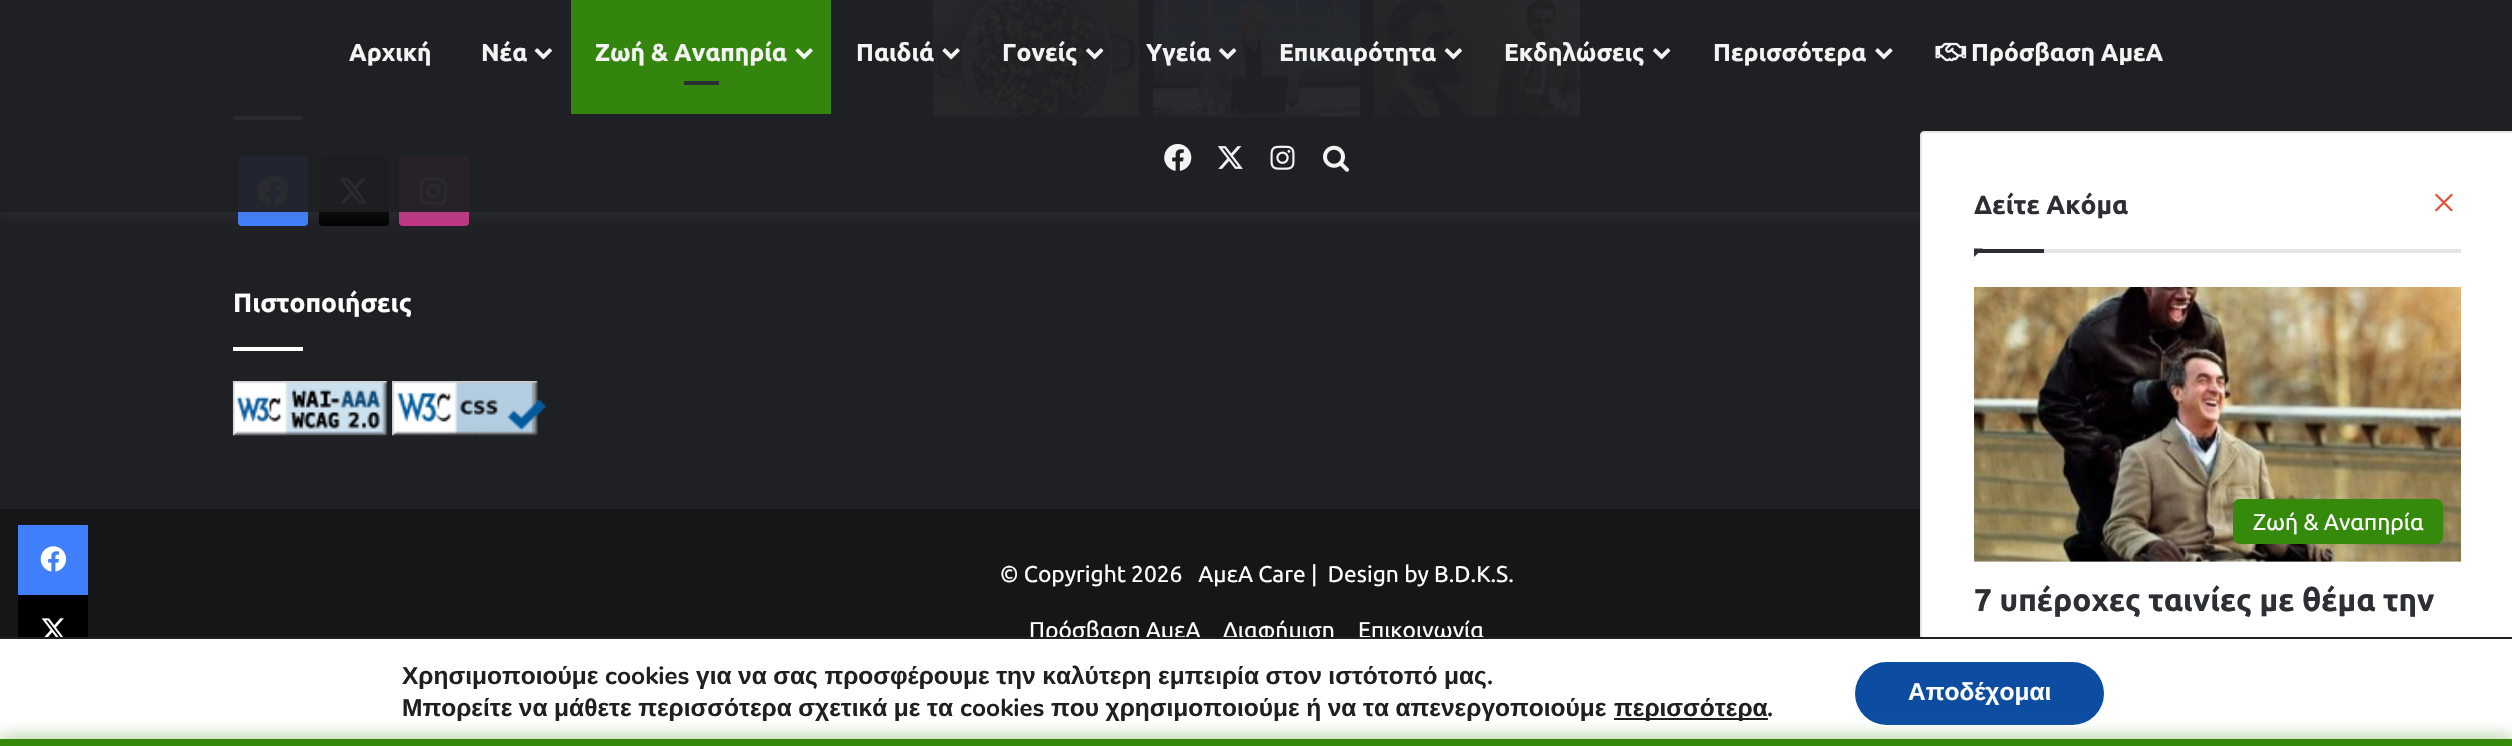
void draw(SkCanvas* canvas) {
	SkPaint paint;
	paint.setAntiAlias(true);
	auto spacedText = [&](const char* s, float x, float y, const SkFont& font, const SkPaint& ink, float letter, float word) {
		std::vector<SkGlyphID> glyphs(font.countText(s, strlen(s), SkTextEncoding::kUTF8));
		std::vector<float> xs(glyphs.size());
		font.textToGlyphs(s, strlen(s), SkTextEncoding::kUTF8, glyphs);
		font.getXPos(glyphs, xs, x);
		float extra = 0;
		for (size_t i = 0; i < glyphs.size(); i++) {
			xs[i] += extra;
			extra += letter + word * (glyphs[i] == font.unicharToGlyph(' '));
		}
		canvas->drawTextBlob(SkTextBlob::MakeFromPosHGlyphs(glyphs, xs, y, font), 0, 0, ink);
	};
	auto svgPath = [&](const char* data, bool evenOdd = false) {
		SkPath result = *SkParsePath::FromSVGString(data);
		if (evenOdd) result.setFillType(SkPathFillType::kEvenOdd);
		return result;
	};
	canvas->clear(0xff1f2024);
	canvas->drawImageRect(SkImages::DeferredFromEncodedData(SkData::MakeFromFileName("img16.png")), SkRect::MakeXYWH(932, 0, 208, 118), SkSamplingOptions());
	canvas->drawImageRect(SkImages::DeferredFromEncodedData(SkData::MakeFromFileName("img17.png")), SkRect::MakeXYWH(1153, 0, 207, 118), SkSamplingOptions());
	canvas->drawImageRect(SkImages::DeferredFromEncodedData(SkData::MakeFromFileName("img18.png")), SkRect::MakeXYWH(1373, 0, 208, 117), SkSamplingOptions());
	paint.setColor(0xffffffff);
	canvas->drawRect(SkRect::MakeXYWH(233, 116, 70, 4), paint);
	paint.setColor(0xff4080ff);
	canvas->drawRoundRect(SkRect::MakeXYWH(238, 156, 70, 70), 4, 4, paint);
	canvas->drawImageRect(SkImages::DeferredFromEncodedData(SkData::MakeFromFileName("img19.png")), SkRect::MakeXYWH(257, 175, 32, 31), SkSamplingOptions());
	paint.setColor(0xff000000);
	canvas->drawRoundRect(SkRect::MakeXYWH(319, 156, 70, 70), 4, 4, paint);
	canvas->drawImageRect(SkImages::DeferredFromEncodedData(SkData::MakeFromFileName("img20.png")), SkRect::MakeXYWH(339, 178, 29, 26), SkSamplingOptions());
	paint.setColor(0xffc13584);
	canvas->drawRoundRect(SkRect::MakeXYWH(399, 156, 70, 70), 4, 4, paint);
	canvas->drawImageRect(SkImages::DeferredFromEncodedData(SkData::MakeFromFileName("img21.png")), SkRect::MakeXYWH(420, 177, 27, 28), SkSamplingOptions());
	canvas->save();
	canvas->clipPath(svgPath("M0 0H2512V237H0ZM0 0H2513V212H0Z", true), true);
	paint.setColor(0x33636363);
	paint.setMaskFilter(SkMaskFilter::MakeBlur(kNormal_SkBlurStyle, 7));
	canvas->drawRect(SkRect::MakeXYWH(0, 4, 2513, 211), paint);
	paint.setMaskFilter(nullptr);
	canvas->restore();
	paint.setColor(0xf21f2024);
	canvas->drawRect(SkRect::MakeXYWH(233, 0, 1348, 212), paint);
	SkFont f1(fontMgr->matchFamilyStyle("Ubuntu", SkFontStyle::Bold()), 24.5);
	f1.setSubpixel(true);
	paint.setColor(0xfff4f4f4);
	canvas->drawString("Αρχική", 349, 61, f1, paint);
	canvas->drawString("Νέα", 481, 61, f1, paint);
	canvas->drawImageRect(SkImages::DeferredFromEncodedData(SkData::MakeFromFileName("img1.png")), SkRect::MakeXYWH(534, 48, 18, 12), SkSamplingOptions());
	paint.setColor(0xff34850d);
	canvas->drawRect(SkRect::MakeXYWH(571, 0, 260, 114), paint);
	paint.setColor(0xfff4f4f4);
	canvas->drawString("Ζωή & Αναπηρία", 595, 61, f1, paint);
	canvas->drawImageRect(SkImages::DeferredFromEncodedData(SkData::MakeFromFileName("img2.png")), SkRect::MakeXYWH(795, 48, 18, 12), SkSamplingOptions());
	paint.setColor(0xff2b2e33);
	canvas->drawRect(SkRect::MakeXYWH(684, 81, 35, 4), paint);
	paint.setColor(0xfff4f4f4);
	canvas->drawString("Παιδιά", 856, 61, f1, paint);
	canvas->drawImageRect(SkImages::DeferredFromEncodedData(SkData::MakeFromFileName("img3.png")), SkRect::MakeXYWH(942, 48, 18, 12), SkSamplingOptions());
	canvas->drawString("Γονείς", 1002, 61, f1, paint);
	canvas->drawImageRect(SkImages::DeferredFromEncodedData(SkData::MakeFromFileName("img4.png")), SkRect::MakeXYWH(1086, 48, 18, 12), SkSamplingOptions());
	canvas->drawString("Υγεία", 1146, 61, f1, paint);
	canvas->drawImageRect(SkImages::DeferredFromEncodedData(SkData::MakeFromFileName("img5.png")), SkRect::MakeXYWH(1219, 48, 18, 12), SkSamplingOptions());
	canvas->drawString("Επικαιρότητα", 1279, 61, f1, paint);
	canvas->drawImageRect(SkImages::DeferredFromEncodedData(SkData::MakeFromFileName("img6.png")), SkRect::MakeXYWH(1444, 48, 18, 12), SkSamplingOptions());
	canvas->drawString("Εκδηλώσεις", 1504, 61, f1, paint);
	canvas->drawImageRect(SkImages::DeferredFromEncodedData(SkData::MakeFromFileName("img7.png")), SkRect::MakeXYWH(1653, 48, 18, 12), SkSamplingOptions());
	canvas->drawString("Περισσότερα", 1713, 61, f1, paint);
	canvas->drawImageRect(SkImages::DeferredFromEncodedData(SkData::MakeFromFileName("img8.png")), SkRect::MakeXYWH(1875, 48, 18, 12), SkSamplingOptions());
	canvas->drawImageRect(SkImages::DeferredFromEncodedData(SkData::MakeFromFileName("img9.png")), SkRect::MakeXYWH(1935, 42, 32, 20), SkSamplingOptions());
	canvas->drawString("Πρόσβαση ΑμεA", 1971, 61, f1, paint);
	canvas->drawImageRect(SkImages::DeferredFromEncodedData(SkData::MakeFromFileName("img10.png")), SkRect::MakeXYWH(1164, 143, 28, 28), SkSamplingOptions());
	canvas->drawImageRect(SkImages::DeferredFromEncodedData(SkData::MakeFromFileName("img11.png")), SkRect::MakeXYWH(1217, 146, 26, 23), SkSamplingOptions());
	canvas->drawImageRect(SkImages::DeferredFromEncodedData(SkData::MakeFromFileName("img12.png")), SkRect::MakeXYWH(1270, 145, 25, 25), SkSamplingOptions());
	canvas->drawImageRect(SkImages::DeferredFromEncodedData(SkData::MakeFromFileName("img13.png")), SkRect::MakeXYWH(1323, 145, 26, 27), SkSamplingOptions());
	paint.setColor(0xff161619);
	canvas->drawRect(SkRect::MakeXYWH(0, 509, 1920, 128), paint);
	paint.setColor(0xff4080ff);
	canvas->drawRect(SkRect::MakeXYWH(18, 525, 70, 70), paint);
	canvas->drawImageRect(SkImages::DeferredFromEncodedData(SkData::MakeFromFileName("img14.png")), SkRect::MakeXYWH(40, 546, 27, 26), SkSamplingOptions());
	paint.setColor(0xff000000);
	canvas->drawRect(SkRect::MakeXYWH(18, 595, 70, 42), paint);
	canvas->drawImageRect(SkImages::DeferredFromEncodedData(SkData::MakeFromFileName("img15.png")), SkRect::MakeXYWH(41, 618, 23, 19), SkSamplingOptions());
	SkFont f2(fontMgr->matchFamilyStyle("Ubuntu", SkFontStyle::Bold()), 26.25);
	f2.setSubpixel(true);
	paint.setColor(0xffffffff);
	canvas->drawString("Πιστοποιήσεις", 233, 312, f2, paint);
	canvas->drawRect(SkRect::MakeXYWH(233, 347, 70, 4), paint);
	canvas->drawImageRect(SkImages::DeferredFromEncodedData(SkData::MakeFromFileName("img22.png")), SkRect::MakeXYWH(232, 381, 155, 55), SkSamplingOptions());
	canvas->drawImageRect(SkImages::DeferredFromEncodedData(SkData::MakeFromFileName("img23.png")), SkRect::MakeXYWH(392, 381, 154, 55), SkSamplingOptions());
	SkFont f3(fontMgr->matchFamilyStyle("Ubuntu", SkFontStyle::Normal()), 22.75);
	f3.setSubpixel(true);
	canvas->drawString("© Copyright 2026   ΑμεΑ Care |  Design by B.D.K.S.", 1000, 582, f3, paint);
	canvas->drawString("Πρόσβαση ΑμεΑ", 1029, 638, f3, paint);
	canvas->drawString("Διαφήμιση", 1223, 638, f3, paint);
	canvas->drawString("Επικοινωνία", 1358, 638, f3, paint);
	canvas->drawPath(svgPath("M1924 131H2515V721H1924C1922 721 1920 719 1920 717V135C1920 133 1922 131 1924 131Z"), paint);
	paint.setStroke(true);
	paint.setStrokeWidth(2);
	paint.setColor(0x1a000000);
	canvas->drawPath(svgPath("M1924 132H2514V720H1924C1922.5 720 1921 718.5 1921 717V135C1921 133.5 1922.5 132 1924 132Z"), paint);
	paint.setStroke(false);
	paint.setColor(0xffe6e6e6);
	canvas->drawRect(SkRect::MakeXYWH(2044, 249, 417, 4), paint);
	paint.setColor(0xff2c2f34);
	canvas->drawString("Δείτε Ακόμα", 1974, 214, f2, paint);
	canvas->drawImageRect(SkImages::DeferredFromEncodedData(SkData::MakeFromFileName("img24.png")), SkRect::MakeXYWH(2435, 193, 18, 19), SkSamplingOptions());
	canvas->drawPath(svgPath("M1974 248.5H1983L1974 257Z"), paint);
	canvas->drawRect(SkRect::MakeXYWH(1974, 249, 70, 4), paint);
	canvas->drawImageRect(SkImages::DeferredFromEncodedData(SkData::MakeFromFileName("img25.png")), SkRect::MakeXYWH(1974, 287, 487, 275), SkSamplingOptions());
	paint.setColor(0xff358a0c);
	canvas->drawRoundRect(SkRect::MakeXYWH(2233, 499, 210, 45), 7, 7, paint);
	paint.setColor(0xffffffff);
	canvas->drawString("Ζωή & Αναπηρία", 2253, 530, f3, paint);
	SkFont f4(fontMgr->matchFamilyStyle("Ubuntu", SkFontStyle::Bold()), 31.5);
	f4.setSubpixel(true);
	paint.setColor(0xff2c2f34);
	canvas->drawString("7 υπέροχες ταινίες με θέμα την", 1974, 611, f4, paint);
	paint.setColor(0xffffffff);
	canvas->drawRect(SkRect::MakeXYWH(0, 639, 2512, 100), paint);
	paint.setColor(0xff202020);
	canvas->drawRect(SkRect::MakeXYWH(0, 637, 2512, 2), paint);
	SkFont f5(fontMgr->matchFamilyStyle("Liberation Sans", SkFontStyle::Bold()), 24.5);
	f5.setSubpixel(true);
	canvas->drawString("Χρησιμοποιούμε", 402, 684, f5, paint);
	SkFont f6(fontMgr->matchFamilyStyle("Nunito", SkFontStyle::Bold()), 24.5);
	f6.setSubpixel(true);
	canvas->drawString("cookies", 605, 684, f6, paint);
	spacedText("για να σας προσφέρουμε την καλύτερη εμπειρία στον ιστότοπό μας", 696, 684, f5, paint, 0, -0.25);
	canvas->drawString(".", 1487, 684, f6, paint);
	spacedText("Μπορείτε να μάθετε περισσότερα σχετικά με τα", 402, 716, f5, paint, 0, -0.25);
	canvas->drawString("cookies", 960, 716, f6, paint);
	spacedText("που χρησιμοποιούμε ή να τα απενεργοποιούμε", 1051, 716, f5, paint, 0, -0.25);
	canvas->drawRect(SkRect::MakeXYWH(1614, 718, 154, 2), paint);
	canvas->drawString("περισσότερα", 1614, 716, f5, paint);
	canvas->drawString(".", 1767, 716, f6, paint);
	paint.setColor(0xff0c4da2);
	canvas->drawRoundRect(SkRect::MakeXYWH(1855, 662, 249, 63), 31.5, 31.5, paint);
	paint.setColor(0xffffffff);
	canvas->drawString("Αποδέχομαι", 1908, 700, f5, paint);
	paint.setColor(0xb3358a0c);
	paint.setMaskFilter(SkMaskFilter::MakeBlur(kNormal_SkBlurStyle, 9));
	canvas->drawRect(SkRect::MakeXYWH(0, 739, 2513, 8), paint);
	paint.setMaskFilter(nullptr);
	paint.setColor(0xff358a0c);
	canvas->drawRect(SkRect::MakeXYWH(0, 739, 2512, 7), paint);
}
